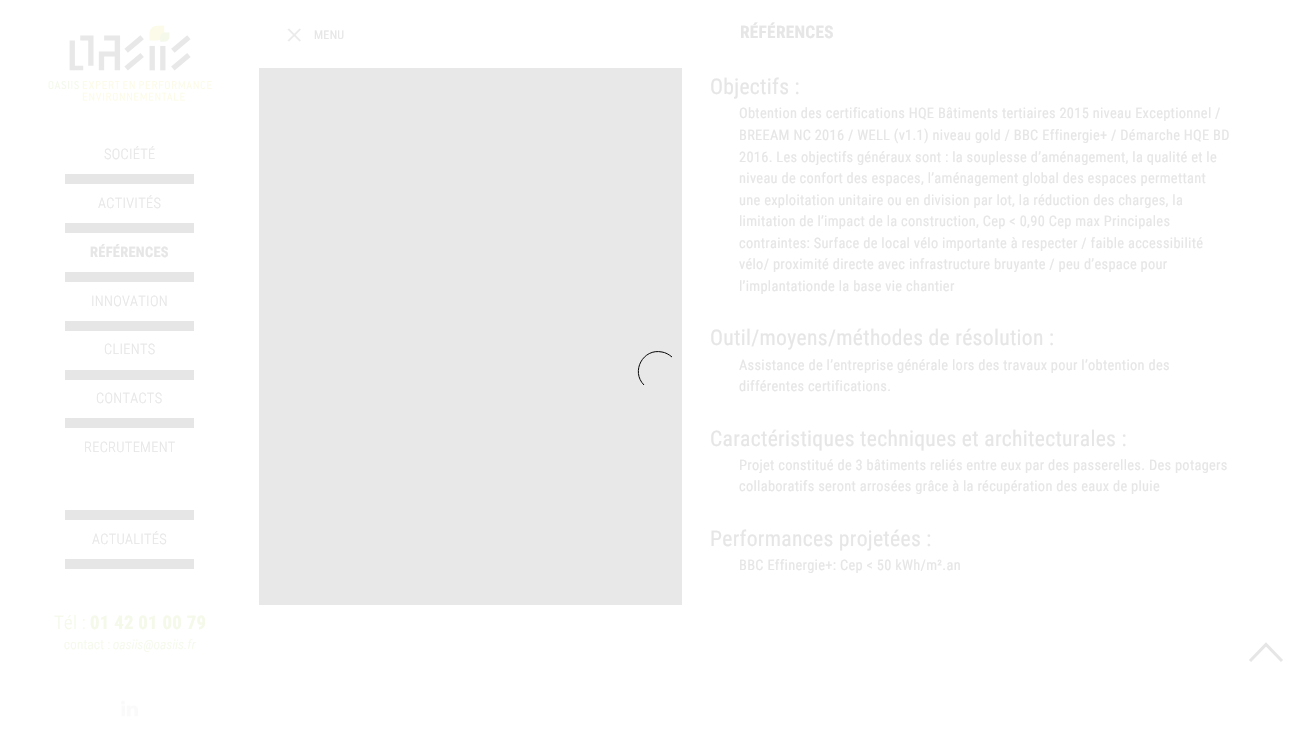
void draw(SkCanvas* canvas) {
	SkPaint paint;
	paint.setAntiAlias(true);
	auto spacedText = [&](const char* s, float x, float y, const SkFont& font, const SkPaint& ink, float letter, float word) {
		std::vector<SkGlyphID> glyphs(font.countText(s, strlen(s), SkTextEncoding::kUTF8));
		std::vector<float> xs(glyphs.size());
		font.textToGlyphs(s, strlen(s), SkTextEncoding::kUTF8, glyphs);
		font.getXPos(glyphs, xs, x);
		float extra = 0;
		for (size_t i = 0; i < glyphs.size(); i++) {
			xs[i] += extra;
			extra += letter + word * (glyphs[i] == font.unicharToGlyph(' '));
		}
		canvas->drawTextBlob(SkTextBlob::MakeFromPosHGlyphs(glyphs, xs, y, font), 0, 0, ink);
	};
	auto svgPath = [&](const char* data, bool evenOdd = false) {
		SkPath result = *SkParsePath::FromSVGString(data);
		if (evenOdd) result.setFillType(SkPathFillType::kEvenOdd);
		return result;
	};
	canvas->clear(0xffffffff);
	SkFont f1(fontMgr->matchFamilyStyle("Roboto Condensed", SkFontStyle::Bold()), 17.25);
	f1.setSubpixel(true);
	paint.setColor(0xffe6e6e6);
	spacedText("RÉFÉRENCES", 740, 38, f1, paint, 0.3, 0);
	SkFont f2(fontMgr->matchFamilyStyle("Roboto Condensed", SkFontStyle::Bold()), 14.4);
	f2.setSubpixel(true);
	spacedText("RÉFÉRENCES", 90, 257, f2, paint, 0.3, 0);
	canvas->drawRect(SkRect::MakeXYWH(65, 272, 129, 10), paint);
	SkFont f3(fontMgr->matchFamilyStyle("Roboto Condensed", SkFontStyle(300, SkFontStyle::kNormal_Width, SkFontStyle::kUpright_Slant)), 14.4);
	f3.setSubpixel(true);
	spacedText("SOCIÉTÉ", 104, 159, f3, paint, 0.3, 0);
	canvas->drawRect(SkRect::MakeXYWH(65, 174, 129, 10), paint);
	spacedText("ACTIVITÉS", 98, 208, f3, paint, 0.3, 0);
	canvas->drawRect(SkRect::MakeXYWH(65, 223, 129, 10), paint);
	spacedText("INNOVATION", 91, 306, f3, paint, 0.3, 0);
	canvas->drawRect(SkRect::MakeXYWH(65, 321, 129, 10), paint);
	spacedText("CLIENTS", 104, 354, f3, paint, 0.3, 0);
	canvas->drawRect(SkRect::MakeXYWH(65, 370, 129, 10), paint);
	spacedText("CONTACTS", 96, 403, f3, paint, 0.3, 0);
	canvas->drawRect(SkRect::MakeXYWH(65, 418, 129, 10), paint);
	spacedText("RECRUTEMENT", 84, 452, f3, paint, 0.3, 0);
	canvas->drawRect(SkRect::MakeXYWH(65, 510, 129, 10), paint);
	spacedText("ACTUALITÉS", 92, 544, f3, paint, 0.3, 0);
	canvas->drawRect(SkRect::MakeXYWH(65, 559, 129, 10), paint);
	SkFont f4(fontMgr->matchFamilyStyle("Roboto Condensed", SkFontStyle(300, SkFontStyle::kNormal_Width, SkFontStyle::kUpright_Slant)), 18.75);
	f4.setSubpixel(true);
	paint.setColor(0xfff4f9e9);
	spacedText("Tél :", 54, 629, f4, paint, 0.3, 0);
	SkFont f5(fontMgr->matchFamilyStyle("Roboto Condensed", SkFontStyle::Bold()), 18.75);
	f5.setSubpixel(true);
	spacedText("01 42 01 00 79", 90, 629, f5, paint, 0.3, 0);
	SkFont f6(fontMgr->matchFamilyStyle("Roboto Condensed", SkFontStyle(300, SkFontStyle::kNormal_Width, SkFontStyle::kUpright_Slant)), 13);
	f6.setSubpixel(true);
	spacedText("contact :", 64, 649, f6, paint, 0.3, 0);
	SkFont f7(fontMgr->matchFamilyStyle("Roboto Condensed", SkFontStyle(300, SkFontStyle::kNormal_Width, SkFontStyle::kItalic_Slant)), 13);
	f7.setSubpixel(true);
	spacedText("oasiis@oasiis.fr", 113, 649, f7, paint, 0.3, 0);
	canvas->drawImageRect(SkImages::DeferredFromEncodedData(SkData::MakeFromFileName("img1.png")), SkRect::MakeXYWH(121, 700, 17, 17), SkSamplingOptions());
	canvas->drawImageRect(SkImages::DeferredFromEncodedData(SkData::MakeFromFileName("img2.png")), SkRect::MakeXYWH(48, 25, 164, 76), SkSamplingOptions());
	paint.setColor(0xffebebeb);
	canvas->drawPath(svgPath("M289 28.5L301 40.5L299.5 41.5L287.5 29.5Z"), paint);
	canvas->drawPath(svgPath("M287.5 40.5L299.5 28.5L301 29.5L289 41.5Z"), paint);
	SkFont f8(fontMgr->matchFamilyStyle("Roboto Condensed", SkFontStyle::Normal()), 12);
	f8.setSubpixel(true);
	paint.setColor(0xffe6e6e6);
	spacedText("MENU", 314, 39, f8, paint, 0.3, 0);
	paint.setColor(0xffe8e8e8);
	canvas->drawRect(SkRect::MakeXYWH(259, 68, 423, 537), paint);
	SkFont f9(fontMgr->matchFamilyStyle("Roboto Condensed", SkFontStyle::Normal()), 21.6);
	f9.setSubpixel(true);
	paint.setColor(0xffe6e6e6);
	spacedText("Objectifs :", 710, 94, f9, paint, 0.3, 0);
	SkFont f10(fontMgr->matchFamilyStyle("Roboto Condensed", SkFontStyle::Normal()), 14.4);
	f10.setSubpixel(true);
	spacedText("Obtention des certifications HQE Bâtiments tertiaires 2015 niveau Exceptionnel /", 739, 118, f10, paint, 0.3, 0);
	spacedText("BREEAM NC 2016 / WELL (v1.1) niveau gold / BBC Effinergie+ / Démarche HQE BD", 739, 140, f10, paint, 0.3, 0);
	spacedText("2016. Les objectifs généraux sont : la souplesse d’aménagement, la qualité et le", 739, 162, f10, paint, 0.3, 0);
	spacedText("niveau de confort des espaces, l’aménagement global des espaces permettant", 739, 183, f10, paint, 0.3, 0);
	spacedText("une exploitation unitaire ou en division par lot, la réduction des charges, la", 739, 205, f10, paint, 0.3, 0);
	spacedText("limitation de l’impact de la construction, Cep < 0,90 Cep max Principales", 739, 226, f10, paint, 0.3, 0);
	spacedText("contraintes: Surface de local vélo importante à respecter / faible accessibilité", 739, 248, f10, paint, 0.3, 0);
	spacedText("vélo/ proximité directe avec infrastructure bruyante / peu d’espace pour", 739, 269, f10, paint, 0.3, 0);
	spacedText("l’implantationde la base vie chantier", 739, 291, f10, paint, 0.3, 0);
	spacedText("Outil/moyens/méthodes de résolution :", 710, 345, f9, paint, 0.3, 0);
	spacedText("Assistance de l’entreprise générale lors des travaux pour l’obtention des", 739, 370, f10, paint, 0.3, 0);
	spacedText("différentes certifications.", 739, 391, f10, paint, 0.3, 0);
	spacedText("Caractéristiques techniques et architecturales :", 710, 446, f9, paint, 0.3, 0);
	spacedText("Projet constitué de 3 bâtiments reliés entre eux par des passerelles. Des potagers", 739, 470, f10, paint, 0.3, 0);
	spacedText("collaboratifs seront arrosées grâce à la récupération des eaux de pluie", 739, 491, f10, paint, 0.3, 0);
	spacedText("Performances projetées :", 710, 546, f9, paint, 0.3, 0);
	spacedText("BBC Effinergie+: Cep < 50 kWh/m².an", 739, 570, f10, paint, 0.3, 0);
	paint.setStroke(true);
	paint.setStrokeWidth(3);
	canvas->drawPath(svgPath("M1250 661L1266 644.5L1282 661"), paint);
	paint.setStrokeWidth(1);
	paint.setColor(0xff030303);
	canvas->drawPath(svgPath("M644 385C630.5 371.5 643 348 662 352C665.5 352.5 669 354.5 672 357"), paint);
}
